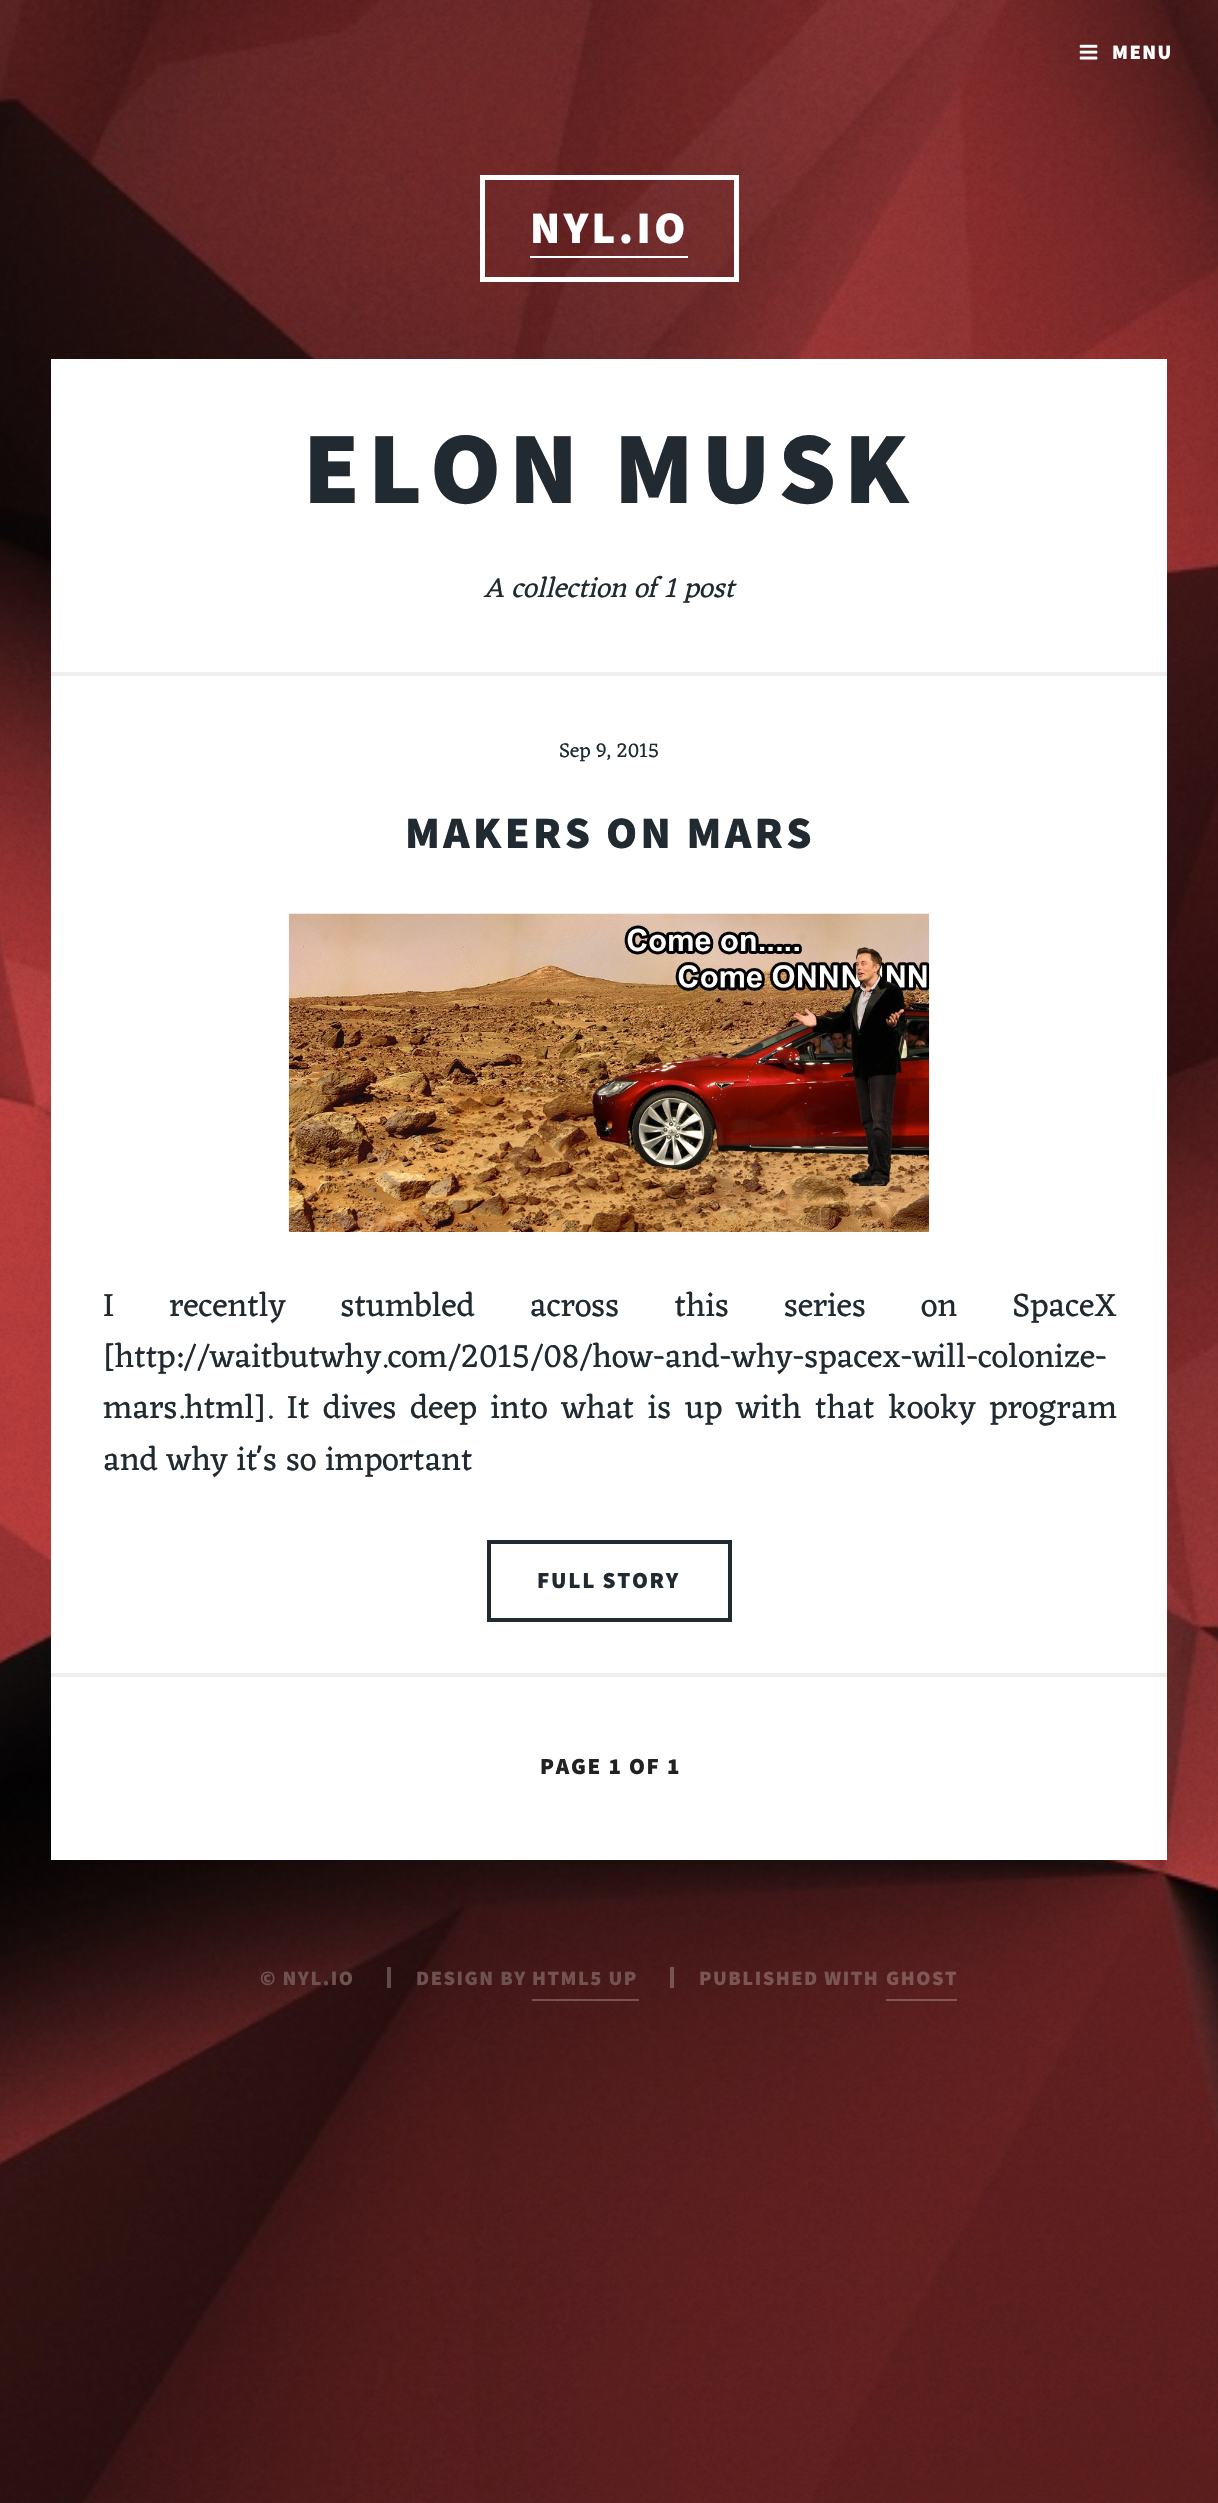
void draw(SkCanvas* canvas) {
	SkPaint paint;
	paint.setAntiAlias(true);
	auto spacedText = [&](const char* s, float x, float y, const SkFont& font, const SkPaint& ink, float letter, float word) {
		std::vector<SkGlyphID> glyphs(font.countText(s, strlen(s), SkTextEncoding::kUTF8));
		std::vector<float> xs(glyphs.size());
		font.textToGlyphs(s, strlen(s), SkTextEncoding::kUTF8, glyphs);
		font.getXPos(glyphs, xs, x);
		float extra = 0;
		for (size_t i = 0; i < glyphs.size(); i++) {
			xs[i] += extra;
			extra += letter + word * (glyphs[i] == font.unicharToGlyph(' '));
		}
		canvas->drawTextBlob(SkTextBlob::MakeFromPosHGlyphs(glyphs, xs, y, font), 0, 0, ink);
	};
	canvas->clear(0xffffffff);
	canvas->drawImageRect(SkImages::DeferredFromEncodedData(SkData::MakeFromFileName("img1.png")), SkRect::MakeXYWH(0, 0, 1218, 2503), SkSamplingOptions());
	canvas->drawImageRect(SkImages::DeferredFromEncodedData(SkData::MakeFromFileName("img2.png")), SkRect::MakeXYWH(1079, 44, 19, 16), SkSamplingOptions());
	SkFont f1(fontMgr->matchFamilyStyle("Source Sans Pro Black", SkFontStyle(900, SkFontStyle::kNormal_Width, SkFontStyle::kUpright_Slant)), 20.5);
	f1.setSubpixel(true);
	paint.setColor(0xffffffff);
	spacedText("MENU", 1112, 59, f1, paint, 1.5, 0);
	paint.setStroke(true);
	paint.setStrokeWidth(5);
	canvas->drawRect(SkRect::MakeXYWH(482.5, 177.5, 254, 102), paint);
	SkFont f2(fontMgr->matchFamilyStyle("Source Sans Pro Black", SkFontStyle(900, SkFontStyle::kNormal_Width, SkFontStyle::kUpright_Slant)), 45);
	f2.setSubpixel(true);
	paint.setStroke(false);
	spacedText("NYL.IO", 530, 243, f2, paint, 3.4, 0);
	canvas->drawRect(SkRect::MakeXYWH(530, 256, 158, 2), paint);
	canvas->drawRect(SkRect::MakeXYWH(51, 359, 1116, 1501), paint);
	SkFont f3(fontMgr->matchFamilyStyle("Source Sans Pro Black", SkFontStyle(900, SkFontStyle::kNormal_Width, SkFontStyle::kUpright_Slant)), 102.75);
	f3.setSubpixel(true);
	paint.setColor(0xff212931);
	spacedText("ELON MUSK", 303, 503, f3, paint, 7.75, 0);
	SkFont f4(fontMgr->matchFamilyStyle("Eczar", SkFontStyle::Italic()), 28.25);
	f4.setSubpixel(true);
	canvas->drawString("A collection of 1 post", 484, 597, f4, paint);
	paint.setColor(0xffeeeeee);
	canvas->drawRect(SkRect::MakeXYWH(51, 672, 1116, 4), paint);
	SkFont f5(fontMgr->matchFamilyStyle("Eczar", SkFontStyle::Normal()), 20.5);
	f5.setSubpixel(true);
	paint.setColor(0xff212931);
	canvas->drawString("Sep 9, 2015", 559, 757, f5, paint);
	spacedText("MAKERS ON MARS", 405, 848, f2, paint, 3.4, 0);
	canvas->drawImageRect(SkImages::DeferredFromEncodedData(SkData::MakeFromFileName("img3.png")), SkRect::MakeXYWH(288, 913, 642, 319), SkSamplingOptions());
	SkFont f6(fontMgr->matchFamilyStyle("Eczar", SkFontStyle::Normal()), 33.4);
	f6.setSubpixel(true);
	spacedText("I recently stumbled across this series on SpaceX", 103, 1316, f6, paint, 0, 46.25);
	canvas->drawString("[http://waitbutwhy.com/2015/08/how-and-why-spacex-will-colonize-", 103, 1367, f6, paint);
	spacedText("mars.html]. It dives deep into what is up with that kooky program", 103, 1418, f6, paint, 0, 4.9);
	canvas->drawString("and why it's so important", 103, 1470, f6, paint);
	paint.setStroke(true);
	paint.setStrokeWidth(4);
	canvas->drawRect(SkRect::MakeXYWH(489, 1542, 241, 78), paint);
	SkFont f7(fontMgr->matchFamilyStyle("Source Sans Pro Black", SkFontStyle(900, SkFontStyle::kNormal_Width, SkFontStyle::kUpright_Slant)), 23);
	f7.setSubpixel(true);
	paint.setStroke(false);
	spacedText("FULL STORY", 537, 1588, f7, paint, 1.75, 0);
	paint.setColor(0xffeeeeee);
	canvas->drawRect(SkRect::MakeXYWH(51, 1673, 1116, 4), paint);
	paint.setColor(0xff222222);
	spacedText("PAGE 1 OF 1", 540, 1774, f7, paint, 1.75, 0);
	paint.setColor(0xff6f5151);
	spacedText("© NYL.IO", 260, 1985, f1, paint, 1.5, 0);
	paint.setColor(0x40ffffff);
	canvas->drawRect(SkRect::MakeXYWH(387, 1967, 4, 21), paint);
	paint.setColor(0xff6f5151);
	spacedText("DESIGN BY", 416, 1985, f1, paint, 1.5, 0);
	paint.setColor(0xff755252);
	spacedText("HTML5 UP", 532, 1985, f1, paint, 1.5, 0);
	paint.setColor(0x40ffffff);
	canvas->drawRect(SkRect::MakeXYWH(532, 1999, 107, 2), paint);
	canvas->drawRect(SkRect::MakeXYWH(670, 1967, 4, 21), paint);
	paint.setColor(0xff7b5454);
	spacedText("PUBLISHED WITH", 699, 1985, f1, paint, 1.5, 0);
	paint.setColor(0xff815656);
	spacedText("GHOST", 886, 1985, f1, paint, 1.5, 0);
	paint.setColor(0x40ffffff);
	canvas->drawRect(SkRect::MakeXYWH(886, 1999, 71, 2), paint);
}
